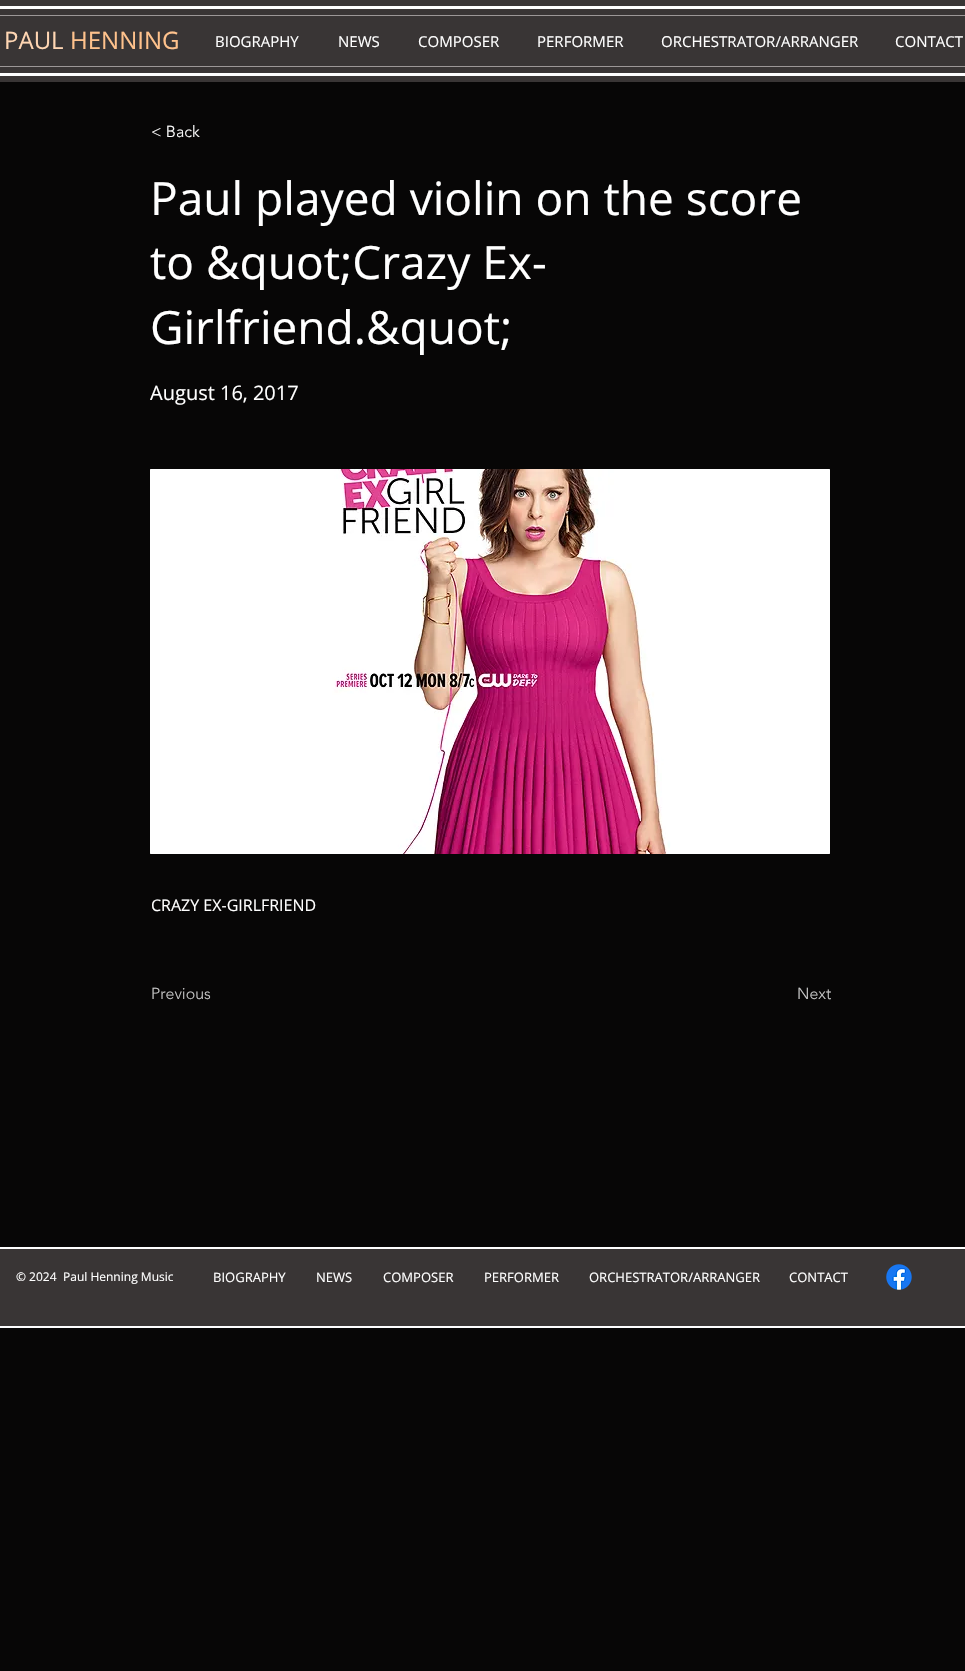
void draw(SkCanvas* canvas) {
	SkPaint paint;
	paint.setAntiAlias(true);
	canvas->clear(0xff070606);
	paint.setColor(0xff393535);
	canvas->drawRect(SkRect::MakeXYWH(0, 0, 965, 82), paint);
	paint.setColor(0xfffdfdfe);
	canvas->drawRect(SkRect::MakeXYWH(0, 6, 965, 3), paint);
	canvas->drawRect(SkRect::MakeXYWH(0, 73, 965, 3), paint);
	paint.setColor(0xff9c9797);
	canvas->drawRect(SkRect::MakeXYWH(0, 15, 965, 1), paint);
	canvas->drawRect(SkRect::MakeXYWH(0, 66, 965, 1), paint);
	SkFont f1(fontMgr->matchFamilyStyle("Open Sans", SkFontStyle::Normal()), 24);
	f1.setSubpixel(true);
	paint.setColor(0xffffd6b3);
	canvas->drawString("PAUL", 4, 49, f1, paint);
	paint.setColor(0xffffc28c);
	canvas->drawString("HENNING", 70, 49, f1, paint);
	SkFont f2(fontMgr->matchFamilyStyle("Open Sans", SkFontStyle::Normal()), 15);
	f2.setSubpixel(true);
	paint.setColor(0xffffffff);
	canvas->drawString("BIOGRAPHY", 215, 47, f2, paint);
	canvas->drawString("NEWS", 338, 47, f2, paint);
	canvas->drawString("COMPOSER", 418, 47, f2, paint);
	canvas->drawString("PERFORMER", 537, 47, f2, paint);
	canvas->drawString("ORCHESTRATOR/ARRANGER", 661, 47, f2, paint);
	canvas->drawString("CONTACT", 895, 47, f2, paint);
	SkFont f3(fontMgr->matchFamilyStyle("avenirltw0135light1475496", SkFontStyle(300, SkFontStyle::kNormal_Width, SkFontStyle::kUpright_Slant)), 16);
	f3.setSubpixel(true);
	canvas->drawString("< Back", 151, 137, f3, paint);
	SkFont f4(fontMgr->matchFamilyStyle("Open Sans", SkFontStyle::Normal()), 46);
	f4.setSubpixel(true);
	canvas->drawString("Paul played violin on the score", 150, 215, f4, paint);
	canvas->drawString("to &quot;Crazy Ex-", 150, 279, f4, paint);
	canvas->drawString("Girlfriend.&quot;", 150, 344, f4, paint);
	SkFont f5(fontMgr->matchFamilyStyle("Open Sans", SkFontStyle::Normal()), 20);
	f5.setSubpixel(true);
	canvas->drawString("August 16, 2017", 150, 400, f5, paint);
	canvas->drawRoundRect(SkRect::MakeXYWH(150, 469, 680, 385), 1, 1, paint);
	canvas->drawImageRect(SkImages::DeferredFromEncodedData(SkData::MakeFromFileName("img1.png")), SkRect::MakeXYWH(150, 469, 680, 385), SkSamplingOptions());
	SkFont f6(fontMgr->matchFamilyStyle("Open Sans", SkFontStyle::Normal()), 16);
	f6.setSubpixel(true);
	canvas->drawString("CRAZY EX-GIRLFRIEND", 151, 911, f6, paint);
	paint.setColor(0xffc7c7c7);
	canvas->drawString("Previous", 151, 999, f3, paint);
	canvas->drawString("Next", 797, 999, f3, paint);
	paint.setColor(0xff393535);
	canvas->drawRect(SkRect::MakeXYWH(0, 1249, 965, 77), paint);
	paint.setColor(0xfffdfdfe);
	canvas->drawRect(SkRect::MakeXYWH(0, 1247, 965, 2), paint);
	canvas->drawRect(SkRect::MakeXYWH(0, 1326, 965, 2), paint);
	SkFont f7(fontMgr->matchFamilyStyle("Open Sans", SkFontStyle::Normal()), 12);
	f7.setSubpixel(true);
	paint.setColor(0xffffffff);
	canvas->drawString("© 2024", 16, 1281, f7, paint);
	canvas->drawString("Paul Henning Music", 63, 1281, f7, paint);
	SkFont f8(fontMgr->matchFamilyStyle("Open Sans", SkFontStyle::Normal()), 13);
	f8.setSubpixel(true);
	canvas->drawString("BIOGRAPHY", 213, 1282, f8, paint);
	canvas->drawString("NEWS", 316, 1282, f8, paint);
	canvas->drawString("COMPOSER", 383, 1282, f8, paint);
	canvas->drawString("PERFORMER", 484, 1282, f8, paint);
	canvas->drawString("ORCHESTRATOR/ARRANGER", 589, 1282, f8, paint);
	canvas->drawString("CONTACT", 789, 1282, f8, paint);
	canvas->drawImageRect(SkImages::DeferredFromEncodedData(SkData::MakeFromFileName("img2.png")), SkRect::MakeXYWH(886, 1264, 26, 26), SkSamplingOptions());
}
